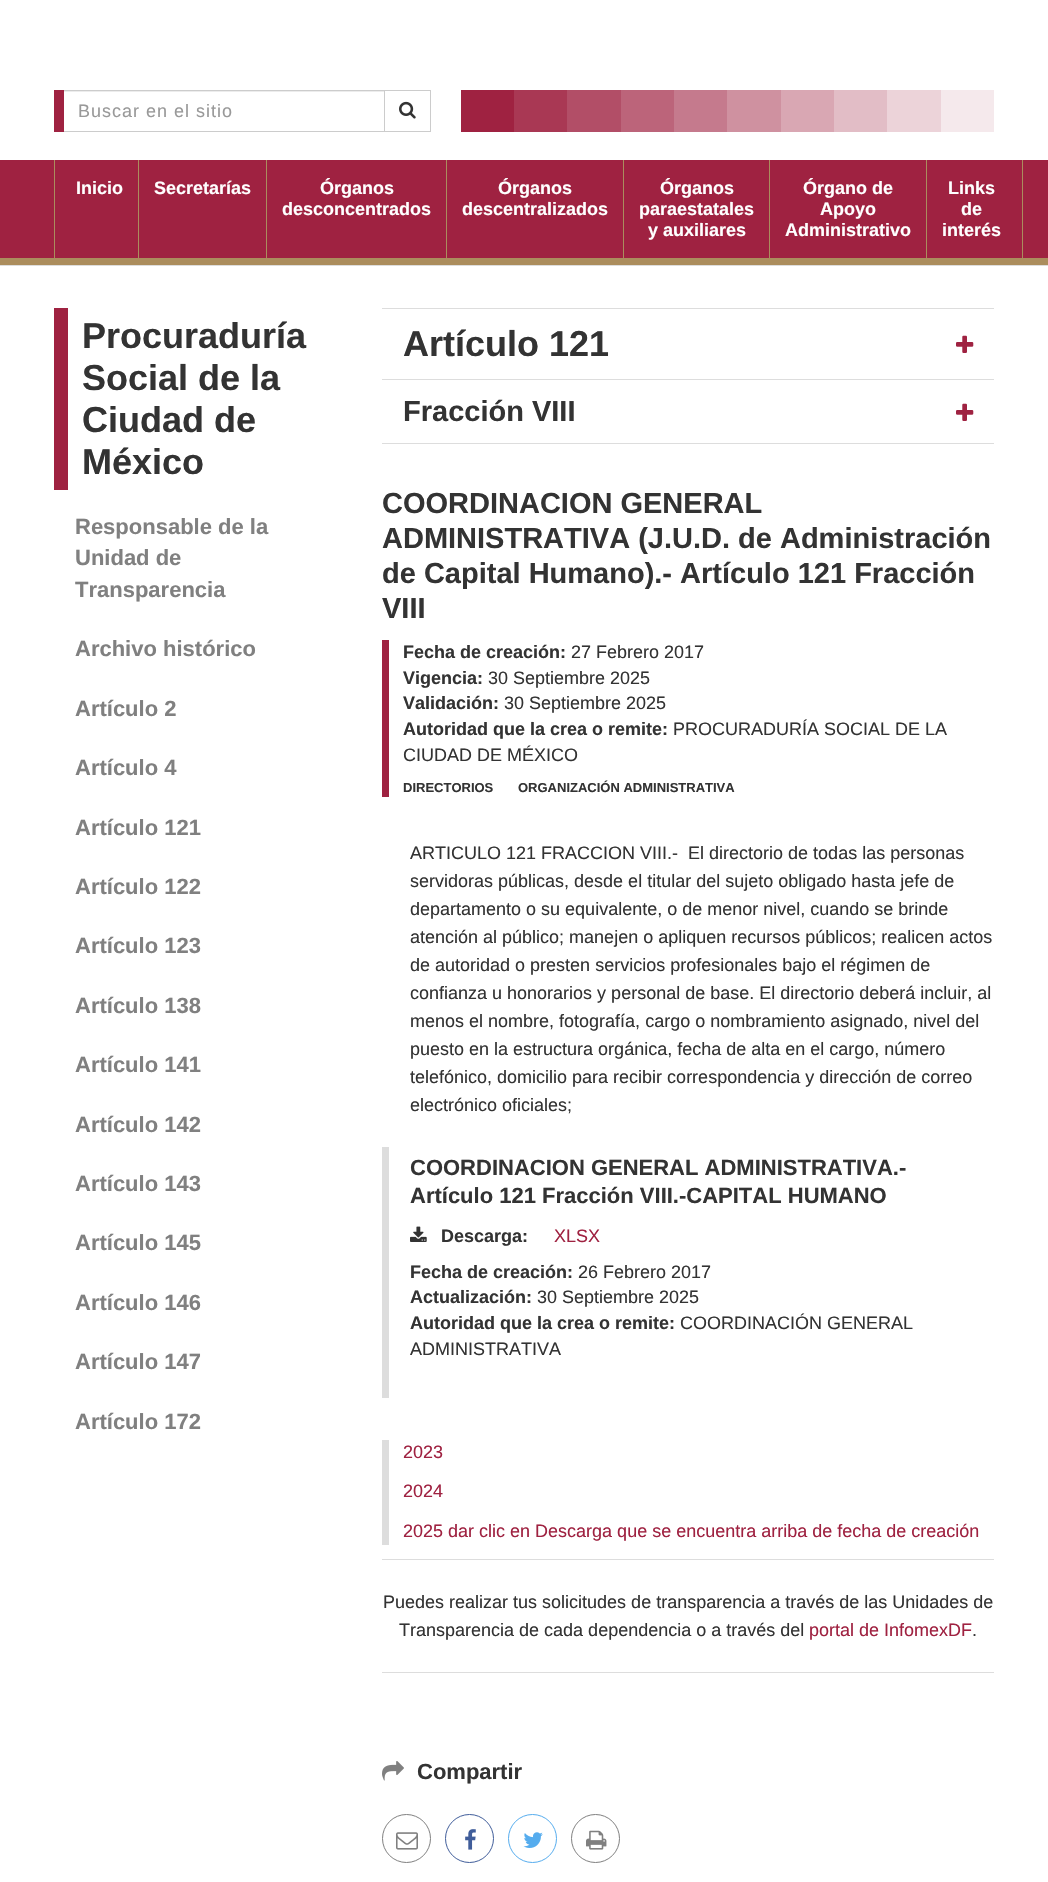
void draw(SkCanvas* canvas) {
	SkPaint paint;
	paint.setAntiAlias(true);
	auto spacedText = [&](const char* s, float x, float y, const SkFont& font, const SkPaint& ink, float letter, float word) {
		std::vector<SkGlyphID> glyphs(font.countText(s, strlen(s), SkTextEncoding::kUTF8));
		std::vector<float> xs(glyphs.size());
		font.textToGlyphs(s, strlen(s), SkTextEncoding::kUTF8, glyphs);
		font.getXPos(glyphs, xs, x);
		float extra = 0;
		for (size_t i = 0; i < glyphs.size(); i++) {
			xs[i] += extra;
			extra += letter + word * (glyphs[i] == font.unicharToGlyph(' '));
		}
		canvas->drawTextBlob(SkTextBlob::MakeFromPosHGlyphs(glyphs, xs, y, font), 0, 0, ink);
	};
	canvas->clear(0xffdddddd);
	paint.setColor(0xffffffff);
	canvas->drawRect(SkRect::MakeXYWH(0, 0, 1048, 160), paint);
	paint.setColor(0xff9f2241);
	canvas->drawRect(SkRect::MakeXYWH(54, 90, 10, 42), paint);
	paint.setColor(0xffececec);
	canvas->drawRect(SkRect::MakeXYWH(64, 91, 320, 1), paint);
	paint.setStroke(true);
	paint.setStrokeWidth(1);
	paint.setColor(0xffcccccc);
	canvas->drawRect(SkRect::MakeXYWH(384.5, 90.5, 46, 41), paint);
	paint.setStroke(false);
	canvas->drawRect(SkRect::MakeXYWH(64, 90, 321, 1), paint);
	canvas->drawRect(SkRect::MakeXYWH(64, 131, 321, 1), paint);
	SkFont f1(fontMgr->matchFamilyStyle("Liberation Sans", SkFontStyle::Normal()), 18);
	f1.setSubpixel(true);
	paint.setColor(0xff999999);
	spacedText("Buscar en el sitio", 78, 117, f1, paint, 1, 0);
	canvas->drawImageRect(SkImages::DeferredFromEncodedData(SkData::MakeFromFileName("img1.png")), SkRect::MakeXYWH(399, 101, 17, 18), SkSamplingOptions());
	paint.setColor(0xff9f2241);
	canvas->drawRect(SkRect::MakeXYWH(461, 90, 53, 42), paint);
	paint.setColor(0xffa93854);
	canvas->drawRect(SkRect::MakeXYWH(514, 90, 53, 42), paint);
	paint.setColor(0xffb24e67);
	canvas->drawRect(SkRect::MakeXYWH(567, 90, 54, 42), paint);
	paint.setColor(0xffbc647a);
	canvas->drawRect(SkRect::MakeXYWH(621, 90, 53, 42), paint);
	paint.setColor(0xffc57a8d);
	canvas->drawRect(SkRect::MakeXYWH(674, 90, 53, 42), paint);
	paint.setColor(0xffcf91a0);
	canvas->drawRect(SkRect::MakeXYWH(727, 90, 54, 42), paint);
	paint.setColor(0xffd9a7b3);
	canvas->drawRect(SkRect::MakeXYWH(781, 90, 53, 42), paint);
	paint.setColor(0xffe2bdc6);
	canvas->drawRect(SkRect::MakeXYWH(834, 90, 53, 42), paint);
	paint.setColor(0xffecd3d9);
	canvas->drawRect(SkRect::MakeXYWH(887, 90, 54, 42), paint);
	paint.setColor(0xfff5e9ec);
	canvas->drawRect(SkRect::MakeXYWH(941, 90, 53, 42), paint);
	paint.setColor(0xff9f2241);
	canvas->drawRect(SkRect::MakeXYWH(0, 160, 1048, 98), paint);
	paint.setColor(0xffab8d5d);
	canvas->drawRect(SkRect::MakeXYWH(0, 258, 1048, 7), paint);
	canvas->drawRect(SkRect::MakeXYWH(54, 160, 1, 98), paint);
	SkFont f2(fontMgr->matchFamilyStyle("Liberation Sans", SkFontStyle::Bold()), 18);
	f2.setSubpixel(true);
	paint.setColor(0xffffffff);
	canvas->drawString("Inicio", 76, 194, f2, paint);
	paint.setColor(0xffab8d5d);
	canvas->drawRect(SkRect::MakeXYWH(138, 160, 1, 98), paint);
	paint.setColor(0xffffffff);
	canvas->drawString("Secretarías", 154, 194, f2, paint);
	paint.setColor(0xffab8d5d);
	canvas->drawRect(SkRect::MakeXYWH(266, 160, 1, 98), paint);
	paint.setColor(0xffffffff);
	canvas->drawString("Órganos", 320, 194, f2, paint);
	canvas->drawString("desconcentrados", 282, 215, f2, paint);
	paint.setColor(0xffab8d5d);
	canvas->drawRect(SkRect::MakeXYWH(446, 160, 1, 98), paint);
	paint.setColor(0xffffffff);
	canvas->drawString("Órganos", 498, 194, f2, paint);
	canvas->drawString("descentralizados", 462, 215, f2, paint);
	paint.setColor(0xffab8d5d);
	canvas->drawRect(SkRect::MakeXYWH(623, 160, 1, 98), paint);
	paint.setColor(0xffffffff);
	canvas->drawString("Órganos", 660, 194, f2, paint);
	canvas->drawString("paraestatales", 639, 215, f2, paint);
	canvas->drawString("y auxiliares", 648, 236, f2, paint);
	paint.setColor(0xffab8d5d);
	canvas->drawRect(SkRect::MakeXYWH(769, 160, 1, 98), paint);
	paint.setColor(0xffffffff);
	canvas->drawString("Órgano de", 803, 194, f2, paint);
	canvas->drawString("Apoyo", 820, 215, f2, paint);
	canvas->drawString("Administrativo", 785, 236, f2, paint);
	paint.setColor(0xffab8d5d);
	canvas->drawRect(SkRect::MakeXYWH(1022, 160, 1, 98), paint);
	canvas->drawRect(SkRect::MakeXYWH(926, 160, 1, 98), paint);
	paint.setColor(0xffffffff);
	canvas->drawString("Links", 948, 194, f2, paint);
	canvas->drawString("de", 961, 215, f2, paint);
	canvas->drawString("interés", 942, 236, f2, paint);
	canvas->drawRect(SkRect::MakeXYWH(0, 266, 1048, 1616), paint);
	paint.setColor(0xff9f2241);
	canvas->drawRect(SkRect::MakeXYWH(54, 308, 14, 182), paint);
	SkFont f3(fontMgr->matchFamilyStyle("Liberation Sans", SkFontStyle::Bold()), 36);
	f3.setSubpixel(true);
	paint.setColor(0xff333333);
	canvas->drawString("Procuraduría", 82, 348, f3, paint);
	canvas->drawString("Social de la", 82, 390, f3, paint);
	canvas->drawString("Ciudad de", 82, 432, f3, paint);
	canvas->drawString("México", 82, 474, f3, paint);
	SkFont f4(fontMgr->matchFamilyStyle("Liberation Sans", SkFontStyle::Bold()), 22);
	f4.setSubpixel(true);
	paint.setColor(0xff808080);
	canvas->drawString("Responsable de la", 75, 534, f4, paint);
	canvas->drawString("Unidad de", 75, 565, f4, paint);
	canvas->drawString("Transparencia", 75, 597, f4, paint);
	canvas->drawString("Archivo histórico", 75, 656, f4, paint);
	canvas->drawString("Artículo 2", 75, 716, f4, paint);
	canvas->drawString("Artículo 4", 75, 775, f4, paint);
	canvas->drawString("Artículo 121", 75, 835, f4, paint);
	canvas->drawString("Artículo 122", 75, 894, f4, paint);
	canvas->drawString("Artículo 123", 75, 953, f4, paint);
	canvas->drawString("Artículo 138", 75, 1013, f4, paint);
	canvas->drawString("Artículo 141", 75, 1072, f4, paint);
	canvas->drawString("Artículo 142", 75, 1132, f4, paint);
	canvas->drawString("Artículo 143", 75, 1191, f4, paint);
	canvas->drawString("Artículo 145", 75, 1250, f4, paint);
	canvas->drawString("Artículo 146", 75, 1310, f4, paint);
	canvas->drawString("Artículo 147", 75, 1369, f4, paint);
	canvas->drawString("Artículo 172", 75, 1429, f4, paint);
	paint.setColor(0xffdddddd);
	canvas->drawRect(SkRect::MakeXYWH(382, 308, 612, 1), paint);
	canvas->drawRect(SkRect::MakeXYWH(382, 379, 612, 1), paint);
	paint.setColor(0xff333333);
	canvas->drawString("Artículo 121", 403, 356, f3, paint);
	canvas->drawImageRect(SkImages::DeferredFromEncodedData(SkData::MakeFromFileName("img2.png")), SkRect::MakeXYWH(956, 335, 18, 18), SkSamplingOptions());
	paint.setColor(0xffdddddd);
	canvas->drawRect(SkRect::MakeXYWH(382, 443, 612, 1), paint);
	SkFont f5(fontMgr->matchFamilyStyle("Liberation Sans", SkFontStyle::Bold()), 29);
	f5.setSubpixel(true);
	paint.setColor(0xff333333);
	canvas->drawString("Fracción VIII", 403, 421, f5, paint);
	canvas->drawImageRect(SkImages::DeferredFromEncodedData(SkData::MakeFromFileName("img2.png")), SkRect::MakeXYWH(956, 403, 18, 18), SkSamplingOptions());
	canvas->drawString("COORDINACION GENERAL", 382, 513, f5, paint);
	canvas->drawString("ADMINISTRATIVA (J.U.D. de Administración", 382, 548, f5, paint);
	canvas->drawString("de Capital Humano).- Artículo 121 Fracción", 382, 583, f5, paint);
	canvas->drawString("VIII", 382, 618, f5, paint);
	paint.setColor(0xff9f2241);
	canvas->drawRect(SkRect::MakeXYWH(382, 640, 7, 157), paint);
	paint.setColor(0xff333333);
	canvas->drawString("Fecha de creación:", 403, 658, f2, paint);
	canvas->drawString("27 Febrero 2017", 571, 658, f1, paint);
	canvas->drawString("Vigencia:", 403, 684, f2, paint);
	canvas->drawString("30 Septiembre 2025", 488, 684, f1, paint);
	canvas->drawString("Validación:", 403, 709, f2, paint);
	canvas->drawString("30 Septiembre 2025", 504, 709, f1, paint);
	canvas->drawString("Autoridad que la crea o remite:", 403, 735, f2, paint);
	canvas->drawString("PROCURADURÍA SOCIAL DE LA", 673, 735, f1, paint);
	canvas->drawString("CIUDAD DE MÉXICO", 403, 761, f1, paint);
	SkFont f6(fontMgr->matchFamilyStyle("Liberation Sans", SkFontStyle::Bold()), 13);
	f6.setSubpixel(true);
	canvas->drawString("DIRECTORIOS", 403, 792, f6, paint);
	canvas->drawString("ORGANIZACIÓN ADMINISTRATIVA", 518, 792, f6, paint);
	canvas->drawString("ARTICULO 121 FRACCION VIII.-  El directorio de todas las personas", 410, 859, f1, paint);
	canvas->drawString("servidoras públicas, desde el titular del sujeto obligado hasta jefe de", 410, 887, f1, paint);
	canvas->drawString("departamento o su equivalente, o de menor nivel, cuando se brinde", 410, 915, f1, paint);
	canvas->drawString("atención al público; manejen o apliquen recursos públicos; realicen actos", 410, 943, f1, paint);
	canvas->drawString("de autoridad o presten servicios profesionales bajo el régimen de", 410, 971, f1, paint);
	canvas->drawString("confianza u honorarios y personal de base. El directorio deberá incluir, al", 410, 999, f1, paint);
	canvas->drawString("menos el nombre, fotografía, cargo o nombramiento asignado, nivel del", 410, 1027, f1, paint);
	canvas->drawString("puesto en la estructura orgánica, fecha de alta en el cargo, número", 410, 1055, f1, paint);
	canvas->drawString("telefónico, domicilio para recibir correspondencia y dirección de correo", 410, 1083, f1, paint);
	canvas->drawString("electrónico oficiales;", 410, 1111, f1, paint);
	paint.setColor(0xffdddddd);
	canvas->drawRect(SkRect::MakeXYWH(382, 1147, 7, 251), paint);
	paint.setColor(0xff333333);
	canvas->drawString("COORDINACION GENERAL ADMINISTRATIVA.-", 410, 1175, f4, paint);
	canvas->drawString("Artículo 121 Fracción VIII.-CAPITAL HUMANO", 410, 1203, f4, paint);
	canvas->drawImageRect(SkImages::DeferredFromEncodedData(SkData::MakeFromFileName("img3.png")), SkRect::MakeXYWH(410, 1226, 17, 16), SkSamplingOptions());
	canvas->drawString("Descarga:", 441, 1242, f2, paint);
	paint.setColor(0xff9f2241);
	canvas->drawString("XLSX", 554, 1242, f1, paint);
	paint.setColor(0xff333333);
	canvas->drawString("Fecha de creación:", 410, 1278, f2, paint);
	canvas->drawString("26 Febrero 2017", 578, 1278, f1, paint);
	canvas->drawString("Actualización:", 410, 1303, f2, paint);
	canvas->drawString("30 Septiembre 2025", 537, 1303, f1, paint);
	canvas->drawString("Autoridad que la crea o remite:", 410, 1329, f2, paint);
	canvas->drawString("COORDINACIÓN GENERAL", 680, 1329, f1, paint);
	canvas->drawString("ADMINISTRATIVA", 410, 1355, f1, paint);
	paint.setColor(0xffdddddd);
	canvas->drawRect(SkRect::MakeXYWH(382, 1440, 7, 105), paint);
	paint.setColor(0xff9f2241);
	canvas->drawString("2023", 403, 1458, f1, paint);
	canvas->drawString("2024", 403, 1497, f1, paint);
	canvas->drawString("2025 dar clic en Descarga que se encuentra arriba de fecha de creación", 403, 1537, f1, paint);
	paint.setColor(0xffdddddd);
	canvas->drawRect(SkRect::MakeXYWH(382, 1559, 612, 1), paint);
	canvas->drawRect(SkRect::MakeXYWH(382, 1672, 612, 1), paint);
	paint.setColor(0xff333333);
	canvas->drawString("Puedes realizar tus solicitudes de transparencia a través de las Unidades de", 383, 1608, f1, paint);
	canvas->drawString("Transparencia de cada dependencia o a través del", 399, 1636, f1, paint);
	paint.setColor(0xff9f2241);
	canvas->drawString("portal de InfomexDF", 809, 1636, f1, paint);
	paint.setColor(0xff333333);
	canvas->drawString(".", 972, 1636, f1, paint);
	canvas->drawImageRect(SkImages::DeferredFromEncodedData(SkData::MakeFromFileName("img4.png")), SkRect::MakeXYWH(382, 1761, 22, 20), SkSamplingOptions());
	canvas->drawString("Compartir", 417, 1779, f4, paint);
	paint.setStroke(true);
	paint.setColor(0xff808080);
	canvas->drawCircle(406.5, 1838.5, 24, paint);
	canvas->drawImageRect(SkImages::DeferredFromEncodedData(SkData::MakeFromFileName("img5.png")), SkRect::MakeXYWH(396, 1832, 22, 18), SkSamplingOptions());
	paint.setColor(0xff405d9a);
	canvas->drawCircle(469.5, 1838.5, 24, paint);
	canvas->drawImageRect(SkImages::DeferredFromEncodedData(SkData::MakeFromFileName("img6.png")), SkRect::MakeXYWH(465, 1829, 11, 21), SkSamplingOptions());
	paint.setColor(0xff55acee);
	canvas->drawCircle(532.5, 1838.5, 24, paint);
	canvas->drawImageRect(SkImages::DeferredFromEncodedData(SkData::MakeFromFileName("img7.png")), SkRect::MakeXYWH(523, 1832, 20, 16), SkSamplingOptions());
	paint.setColor(0xff808080);
	canvas->drawCircle(595.5, 1838.5, 24, paint);
	canvas->drawImageRect(SkImages::DeferredFromEncodedData(SkData::MakeFromFileName("img8.png")), SkRect::MakeXYWH(586, 1830, 21, 20), SkSamplingOptions());
}
